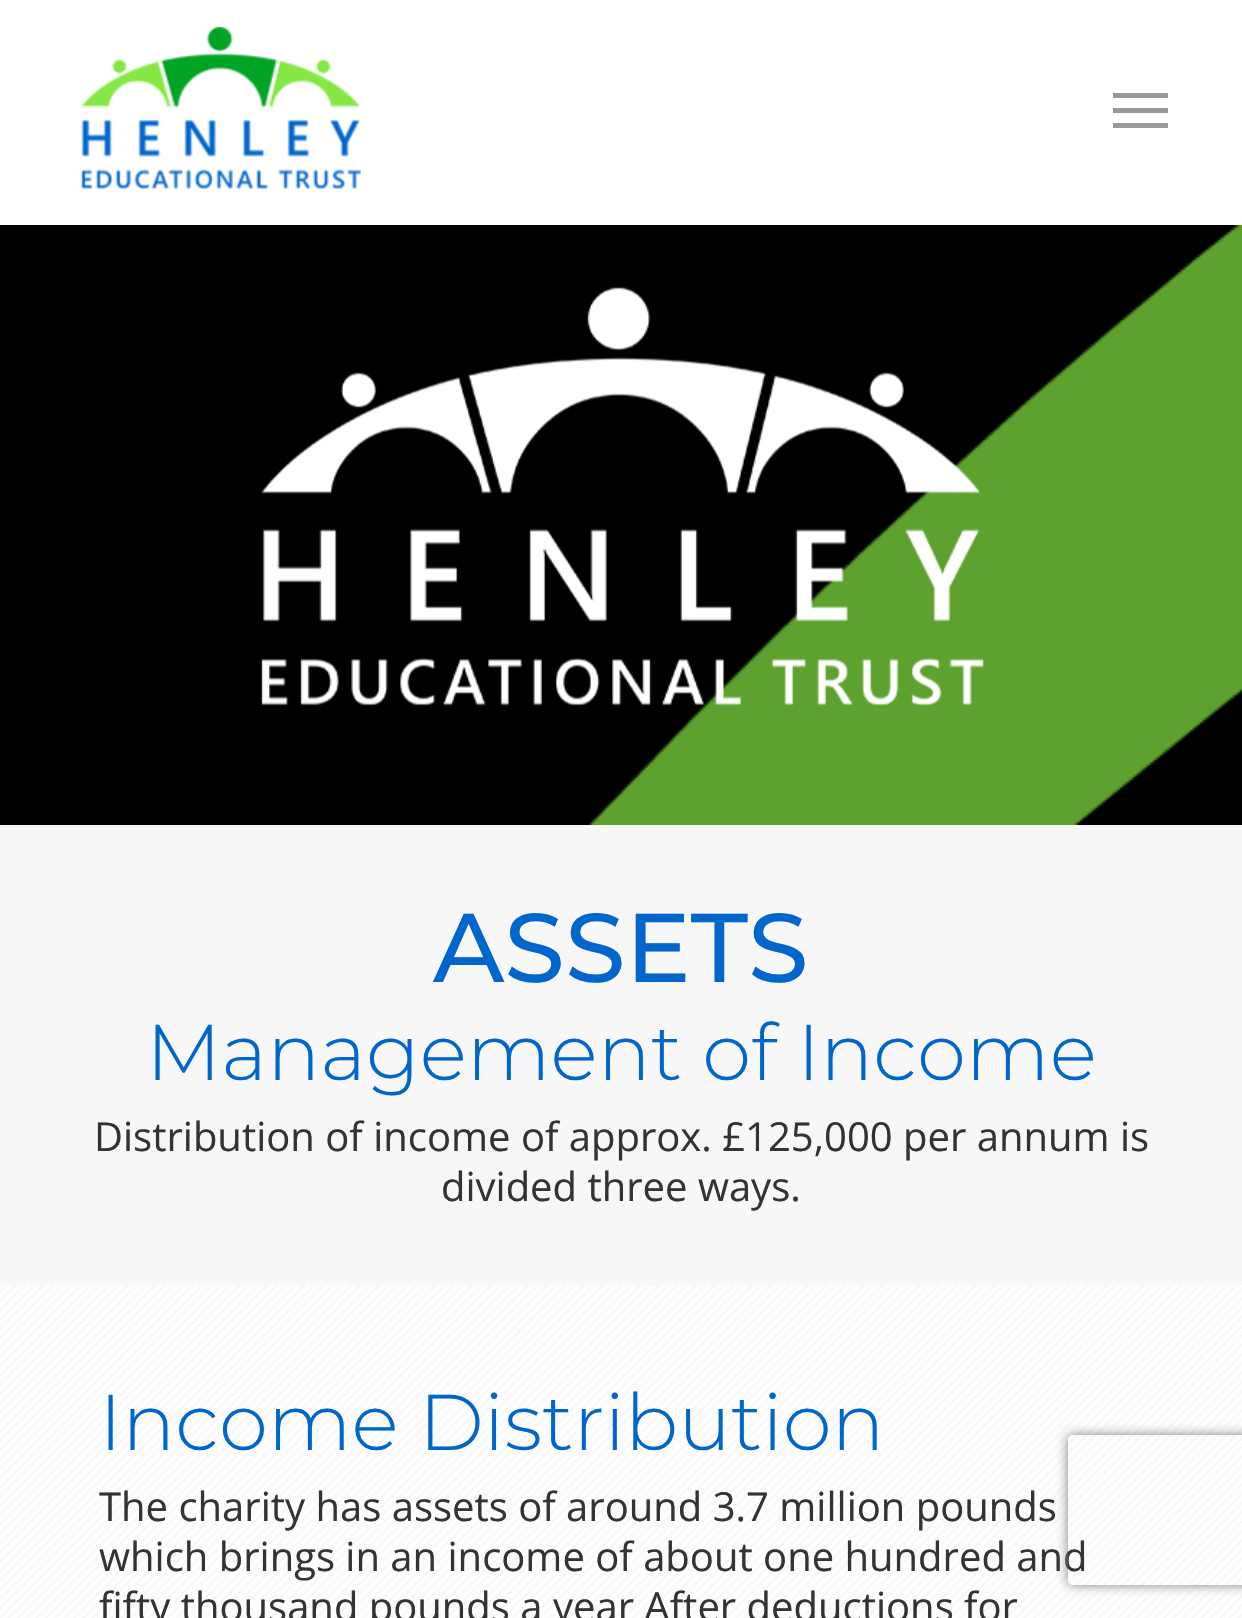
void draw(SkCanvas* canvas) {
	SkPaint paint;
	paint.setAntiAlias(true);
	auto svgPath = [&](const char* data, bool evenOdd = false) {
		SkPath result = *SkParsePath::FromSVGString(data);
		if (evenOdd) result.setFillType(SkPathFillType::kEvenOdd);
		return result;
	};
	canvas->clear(0xffffffff);
	paint.setColor(0xff000000);
	canvas->drawRect(SkRect::MakeXYWH(0, 225, 1242, 600), paint);
	canvas->drawImageRect(SkImages::DeferredFromEncodedData(SkData::MakeFromFileName("img2.png")), SkRect::MakeXYWH(589, 225, 653, 600), SkSamplingOptions());
	canvas->save();
	canvas->clipRect(SkRect::MakeXYWH(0, 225, 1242, 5));
	paint.setColor(0x38000000);
	paint.setMaskFilter(SkMaskFilter::MakeBlur(kNormal_SkBlurStyle, 4));
	canvas->drawRect(SkRect::MakeXYWH(0, 0, 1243, 225), paint);
	paint.setMaskFilter(nullptr);
	canvas->restore();
	canvas->drawImageRect(SkImages::DeferredFromEncodedData(SkData::MakeFromFileName("img1.png")), SkRect::MakeXYWH(80, 26, 282, 163), SkSamplingOptions());
	paint.setColor(0xff999999);
	canvas->drawRect(SkRect::MakeXYWH(1113, 93, 55, 5), paint);
	canvas->drawRect(SkRect::MakeXYWH(1113, 123, 55, 5), paint);
	canvas->drawRect(SkRect::MakeXYWH(1113, 108, 55, 5), paint);
	paint.setColor(0xfff7f7f7);
	canvas->drawRect(SkRect::MakeXYWH(0, 825, 1242, 460), paint);
	canvas->drawImageRect(SkImages::DeferredFromEncodedData(SkData::MakeFromFileName("img3.png")), SkRect::MakeXYWH(261, 287, 723, 419), SkSamplingOptions());
	SkFont f1(fontMgr->matchFamilyStyle("Montserrat", SkFontStyle(500, SkFontStyle::kNormal_Width, SkFontStyle::kUpright_Slant)), 97.5);
	f1.setSubpixel(true);
	paint.setColor(0xff0066cc);
	canvas->drawString("ASSETS", 433, 982, f1, paint);
	SkFont f2(fontMgr->matchFamilyStyle("Montserrat", SkFontStyle(300, SkFontStyle::kNormal_Width, SkFontStyle::kUpright_Slant)), 78.75);
	f2.setSubpixel(true);
	canvas->drawString("Management of Income", 146, 1080, f2, paint);
	SkFont f3(fontMgr->matchFamilyStyle("Open Sans", SkFontStyle::Normal()), 40);
	f3.setSubpixel(true);
	paint.setColor(0xff333333);
	canvas->drawString("Distribution of income of approx. £125,000 per annum is", 94, 1151, f3, paint);
	canvas->drawString("divided three ways.", 441, 1201, f3, paint);
	canvas->drawImageRect(SkImages::DeferredFromEncodedData(SkData::MakeFromFileName("img4.png")), SkRect::MakeXYWH(0, 1285, 1242, 333), SkSamplingOptions());
	paint.setColor(0xff0066cc);
	canvas->drawString("Income Distribution", 99, 1450, f2, paint);
	paint.setColor(0xff333333);
	canvas->drawString("The charity has assets of around 3.7 million pounds", 99, 1521, f3, paint);
	canvas->drawString("which brings in an income of about one hundred and", 99, 1571, f3, paint);
	canvas->drawString("fifty thousand pounds a year After deductions for", 99, 1621, f3, paint);
	canvas->save();
	canvas->clipPath(svgPath("M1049 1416H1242V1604H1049ZM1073 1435H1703C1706 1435 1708 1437 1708 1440V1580C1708 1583 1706 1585 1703 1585H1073C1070 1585 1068 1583 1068 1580V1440C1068 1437 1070 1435 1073 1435Z", true), true);
	paint.setColor(0xff808080);
	paint.setMaskFilter(SkMaskFilter::MakeBlur(kNormal_SkBlurStyle, 6));
	canvas->drawRoundRect(SkRect::MakeXYWH(1068, 1435, 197, 150), 5, 5, paint);
	paint.setMaskFilter(nullptr);
	canvas->restore();
}
